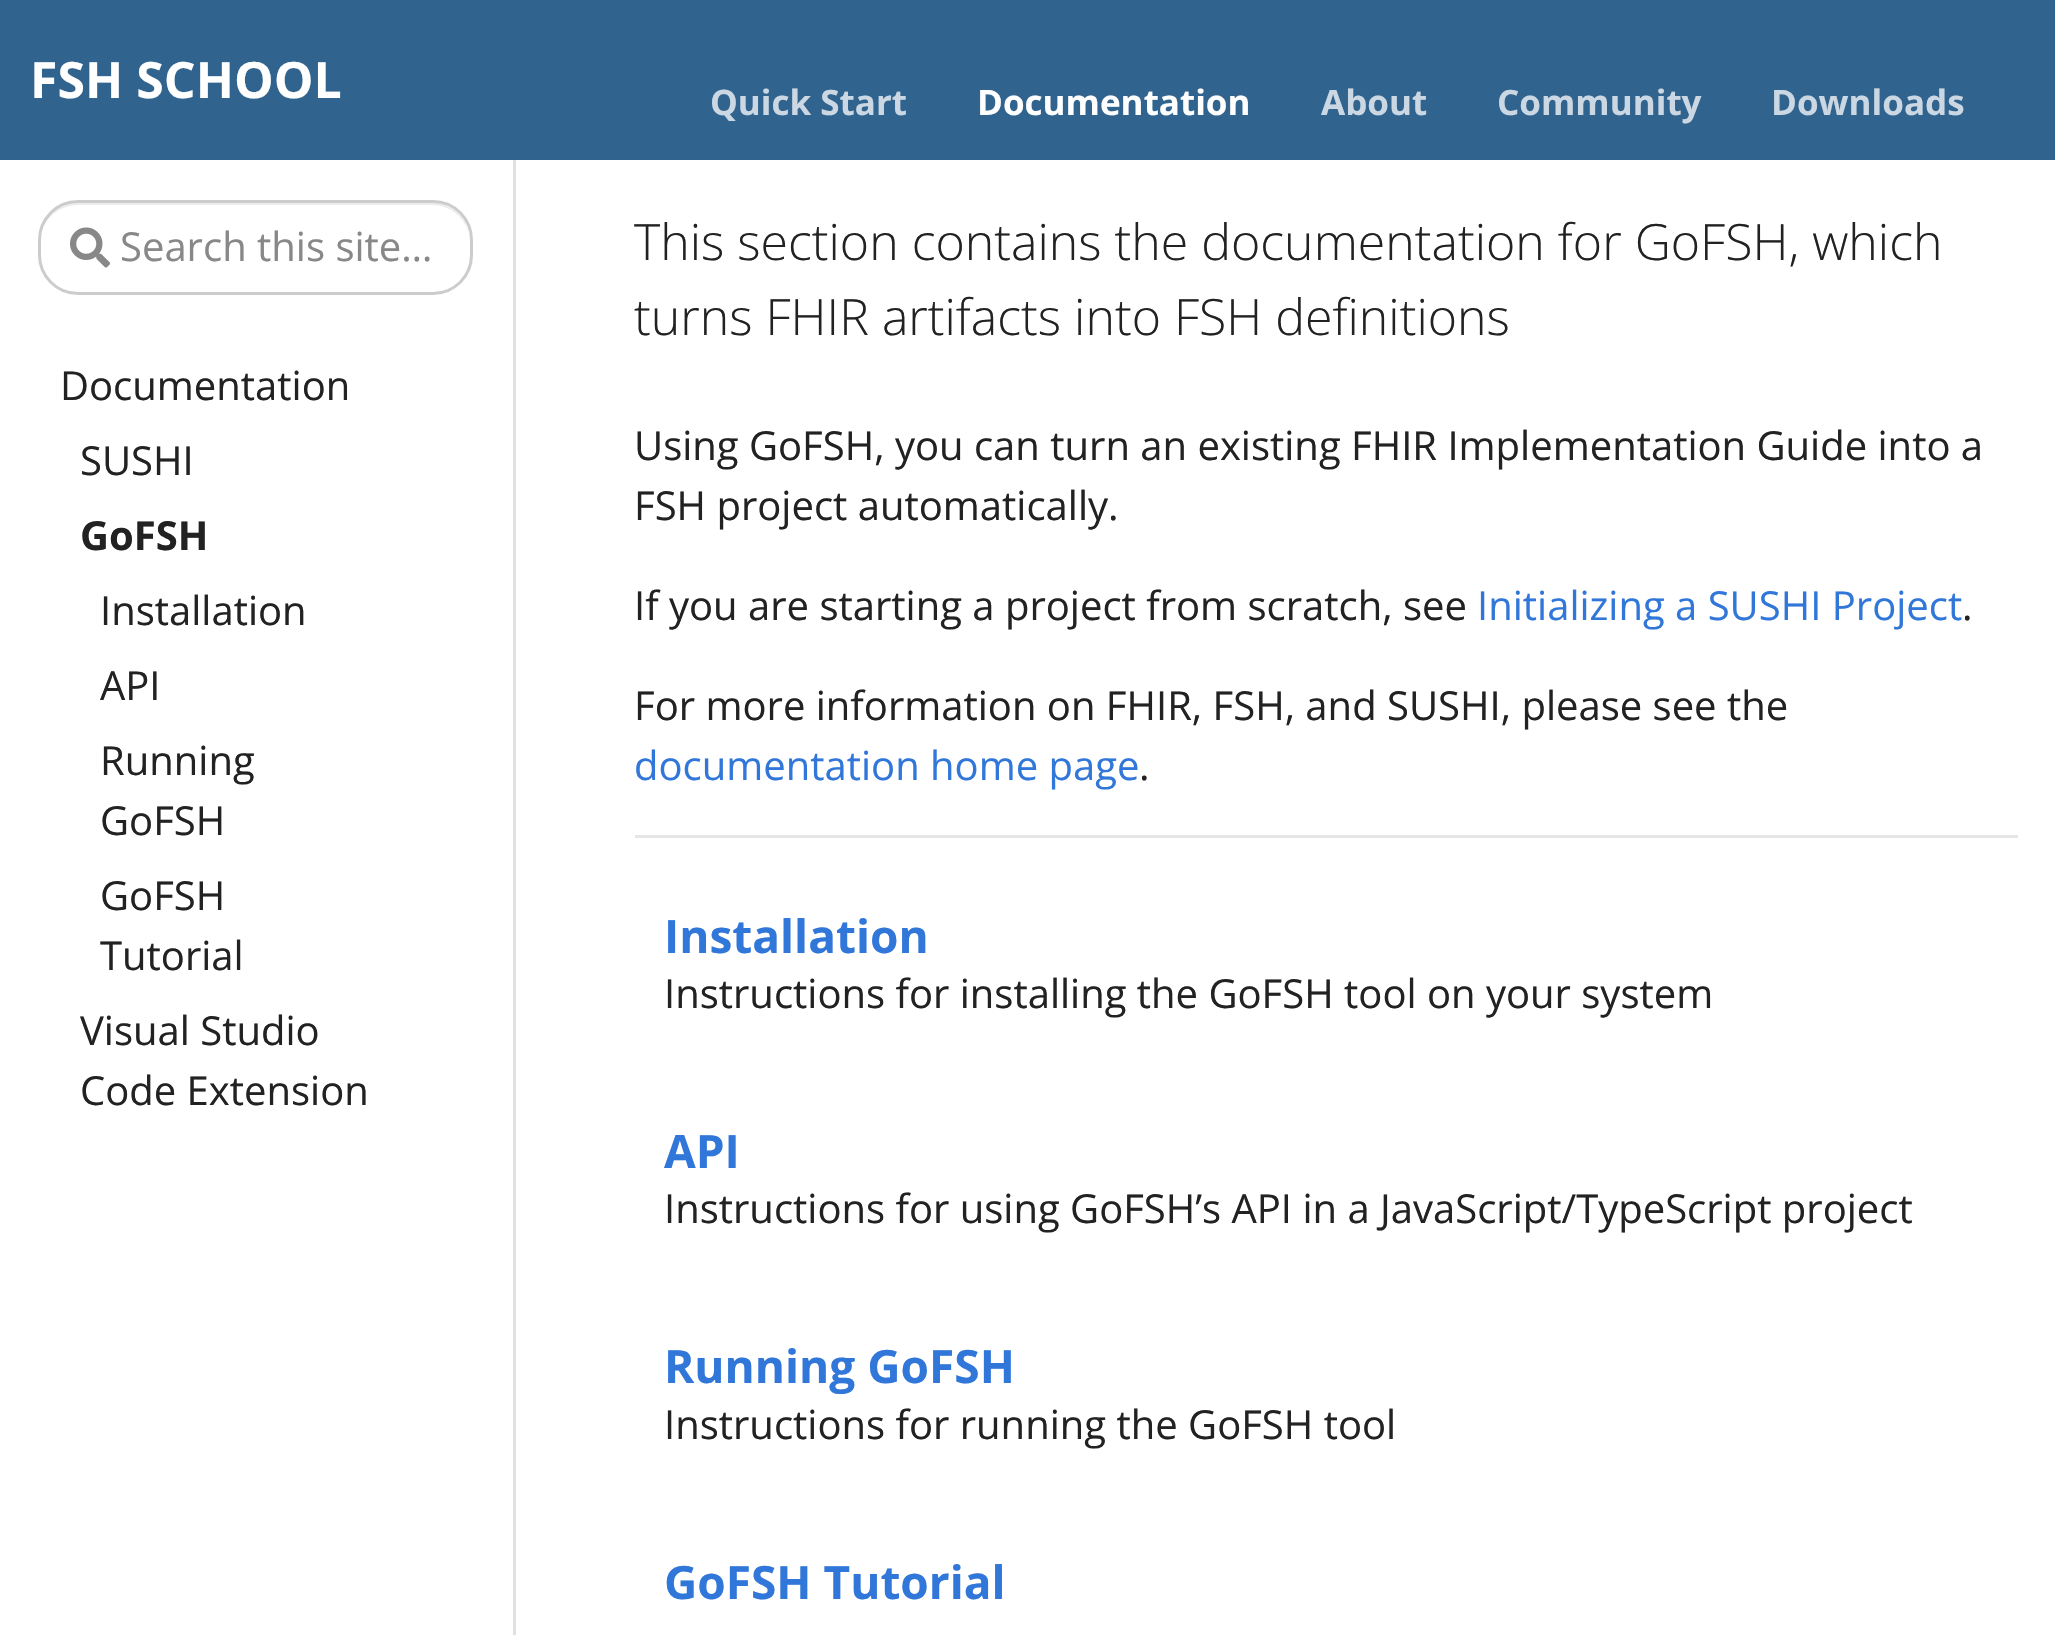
void draw(SkCanvas* canvas) {
	SkPaint paint;
	paint.setAntiAlias(true);
	auto svgPath = [&](const char* data, bool evenOdd = false) {
		SkPath result = *SkParsePath::FromSVGString(data);
		if (evenOdd) result.setFillType(SkPathFillType::kEvenOdd);
		return result;
	};
	canvas->clear(0xffffffff);
	paint.setColor(0xff30638e);
	canvas->drawRect(SkRect::MakeXYWH(0, 0, 2055, 160), paint);
	SkFont f1(fontMgr->matchFamilyStyle("Open Sans", SkFontStyle::Bold()), 50);
	f1.setSubpixel(true);
	paint.setColor(0xffffffff);
	canvas->drawString("FSH SCHOOL", 30, 98, f1, paint);
	SkFont f2(fontMgr->matchFamilyStyle("Open Sans", SkFontStyle::Bold()), 35);
	f2.setSubpixel(true);
	paint.setColor(0xffcbd8e3);
	canvas->drawString("Quick Start", 710, 115, f2, paint);
	paint.setColor(0xffffffff);
	canvas->drawString("Documentation", 977, 115, f2, paint);
	paint.setColor(0xffcbd8e3);
	canvas->drawString("About", 1321, 115, f2, paint);
	canvas->drawString("Community", 1497, 115, f2, paint);
	canvas->drawString("Downloads", 1771, 115, f2, paint);
	paint.setColor(0xffdee2e6);
	canvas->drawRect(SkRect::MakeXYWH(513, 160, 3, 1475), paint);
	paint.setColor(0xffececec);
	canvas->drawPath(svgPath("M78 205H432C453 205 470 222 470 242V241C470 220 453 203 432 203H78C57 203 40 220 40 241V242C40 222 57 205 78 205Z"), paint);
	paint.setStroke(true);
	paint.setStrokeWidth(3);
	paint.setColor(0xffcccccc);
	canvas->drawRoundRect(SkRect::MakeXYWH(39.5, 201.5, 432, 92), 38.5, 38.5, paint);
	canvas->drawImageRect(SkImages::DeferredFromEncodedData(SkData::MakeFromFileName("img1.png")), SkRect::MakeXYWH(70, 227, 40, 41), SkSamplingOptions());
	SkFont f3(fontMgr->matchFamilyStyle("Open Sans", SkFontStyle::Normal()), 40);
	f3.setSubpixel(true);
	paint.setStroke(false);
	paint.setColor(0xff888888);
	canvas->drawString("Search this site…", 120, 261, f3, paint);
	paint.setColor(0xff222222);
	canvas->drawString("Documentation", 60, 400, f3, paint);
	canvas->drawString("SUSHI", 80, 475, f3, paint);
	SkFont f4(fontMgr->matchFamilyStyle("Open Sans", SkFontStyle::Bold()), 40);
	f4.setSubpixel(true);
	canvas->drawString("GoFSH", 80, 550, f4, paint);
	canvas->drawString("Installation", 100, 625, f3, paint);
	canvas->drawString("API", 100, 700, f3, paint);
	canvas->drawString("Running", 100, 775, f3, paint);
	canvas->drawString("GoFSH", 100, 835, f3, paint);
	canvas->drawString("GoFSH", 100, 910, f3, paint);
	canvas->drawString("Tutorial", 100, 970, f3, paint);
	canvas->drawString("Visual Studio", 80, 1045, f3, paint);
	canvas->drawString("Code Extension", 80, 1105, f3, paint);
	SkFont f5(fontMgr->matchFamilyStyle("Open Sans", SkFontStyle(300, SkFontStyle::kNormal_Width, SkFontStyle::kUpright_Slant)), 50);
	f5.setSubpixel(true);
	canvas->drawString("This section contains the documentation for GoFSH, which", 634, 260, f5, paint);
	canvas->drawString("turns FHIR artifacts into FSH definitions", 634, 335, f5, paint);
	canvas->drawString("Using GoFSH, you can turn an existing FHIR Implementation Guide into a", 634, 460, f3, paint);
	canvas->drawString("FSH project automatically.", 634, 520, f3, paint);
	canvas->drawString("If you are starting a project from scratch, see", 634, 620, f3, paint);
	paint.setColor(0xff3176d9);
	canvas->drawString("Initializing a SUSHI Project", 1477, 620, f3, paint);
	paint.setColor(0xff222222);
	canvas->drawString(".", 1962, 620, f3, paint);
	canvas->drawString("For more information on FHIR, FSH, and SUSHI, please see the", 634, 720, f3, paint);
	paint.setColor(0xff3176d9);
	canvas->drawString("documentation home page", 634, 780, f3, paint);
	paint.setColor(0xff222222);
	canvas->drawString(".", 1139, 780, f3, paint);
	paint.setColor(0xffe6e6e6);
	canvas->drawRect(SkRect::MakeXYWH(635, 835, 1383, 3), paint);
	SkFont f6(fontMgr->matchFamilyStyle("Open Sans", SkFontStyle::Bold()), 46);
	f6.setSubpixel(true);
	paint.setColor(0xff3176d9);
	canvas->drawString("Installation", 664, 953, f6, paint);
	paint.setColor(0xff222222);
	canvas->drawString("Instructions for installing the GoFSH tool on your system", 664, 1008, f3, paint);
	paint.setColor(0xff3176d9);
	canvas->drawString("API", 664, 1168, f6, paint);
	paint.setColor(0xff222222);
	canvas->drawString("Instructions for using GoFSH’s API in a JavaScript/TypeScript project", 664, 1223, f3, paint);
	paint.setColor(0xff3176d9);
	canvas->drawString("Running GoFSH", 664, 1383, f6, paint);
	paint.setColor(0xff222222);
	canvas->drawString("Instructions for running the GoFSH tool", 664, 1439, f3, paint);
	paint.setColor(0xff3176d9);
	canvas->drawString("GoFSH Tutorial", 664, 1599, f6, paint);
}
